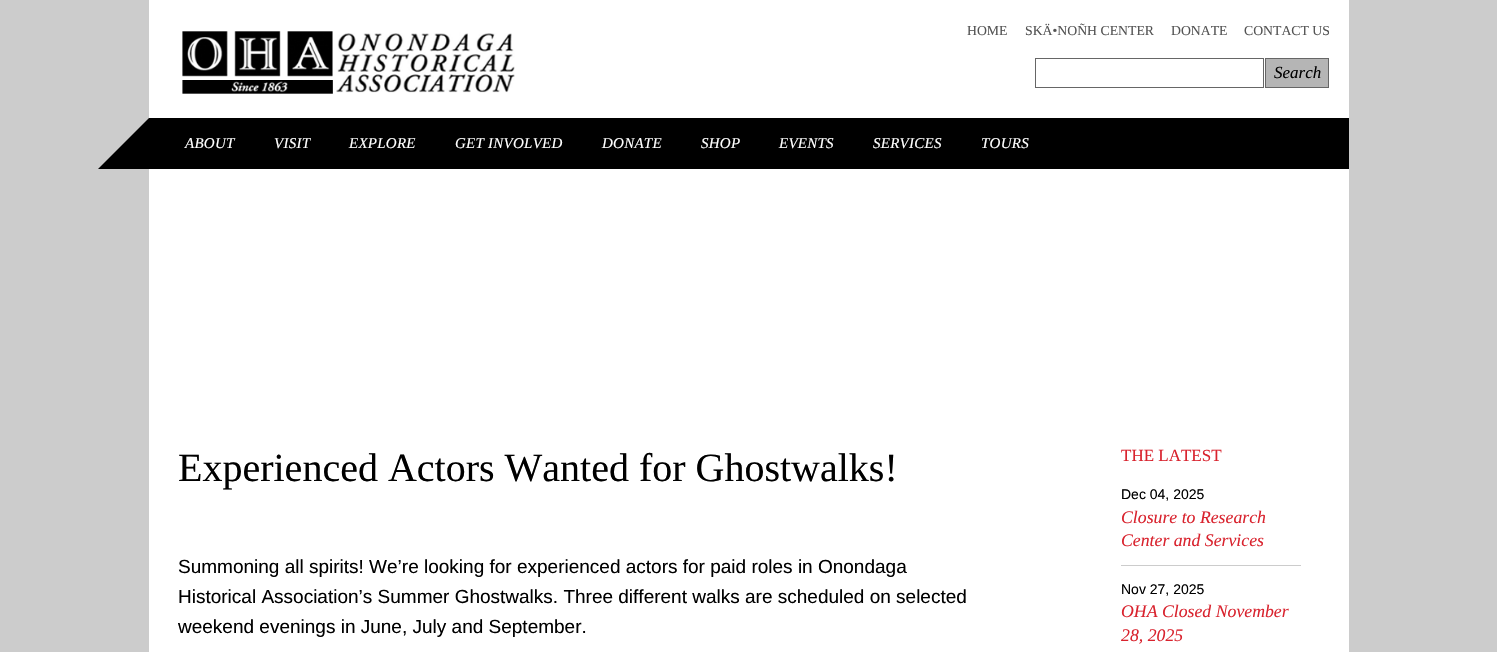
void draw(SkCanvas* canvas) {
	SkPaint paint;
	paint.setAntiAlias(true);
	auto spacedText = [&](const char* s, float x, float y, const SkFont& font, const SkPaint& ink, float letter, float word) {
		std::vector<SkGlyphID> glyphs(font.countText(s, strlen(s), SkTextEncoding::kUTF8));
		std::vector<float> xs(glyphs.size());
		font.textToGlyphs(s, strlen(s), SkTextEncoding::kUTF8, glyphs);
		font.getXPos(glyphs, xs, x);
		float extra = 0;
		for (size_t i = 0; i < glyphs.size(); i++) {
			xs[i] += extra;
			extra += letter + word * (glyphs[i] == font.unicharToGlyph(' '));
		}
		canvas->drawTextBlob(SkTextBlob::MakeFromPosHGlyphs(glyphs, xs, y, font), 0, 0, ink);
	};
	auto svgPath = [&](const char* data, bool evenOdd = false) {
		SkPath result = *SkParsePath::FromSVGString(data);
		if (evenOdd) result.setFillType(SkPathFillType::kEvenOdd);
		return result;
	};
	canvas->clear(0xffcccccc);
	paint.setColor(0xffffffff);
	canvas->drawRect(SkRect::MakeXYWH(149, 0, 1200, 652), paint);
	SkFont f1(fontMgr->matchFamilyStyle("Liberation Serif", SkFontStyle::Normal()), 13.75);
	f1.setSubpixel(true);
	paint.setColor(0xff545454);
	canvas->drawString("HOME", 967, 35, f1, paint);
	canvas->drawString("SKÄ•NOÑH CENTER", 1025, 35, f1, paint);
	canvas->drawString("DONATE", 1171, 35, f1, paint);
	canvas->drawString("CONTACT US", 1244, 35, f1, paint);
	canvas->drawImageRect(SkImages::DeferredFromEncodedData(SkData::MakeFromFileName("img1.png")), SkRect::MakeXYWH(182, 31, 333, 63), SkSamplingOptions());
	paint.setStroke(true);
	paint.setStrokeWidth(1);
	paint.setColor(0xff666666);
	canvas->drawRect(SkRect::MakeXYWH(1035.5, 58.5, 228, 29), paint);
	paint.setStroke(false);
	paint.setColor(0xffb5b5b5);
	canvas->drawRect(SkRect::MakeXYWH(1265.5, 58.5, 63, 29), paint);
	paint.setStroke(true);
	paint.setColor(0xff666666);
	canvas->drawRect(SkRect::MakeXYWH(1265.5, 58.5, 63, 29), paint);
	SkFont f2(fontMgr->matchFamilyStyle("Liberation Serif", SkFontStyle::Italic()), 17);
	f2.setSubpixel(true);
	paint.setStroke(false);
	paint.setColor(0xff000000);
	canvas->drawString("Search", 1274, 78, f2, paint);
	canvas->drawRect(SkRect::MakeXYWH(149, 118, 1200, 51), paint);
	canvas->drawPath(svgPath("M149 118V169H98Z"), paint);
	SkFont f3(fontMgr->matchFamilyStyle("Liberation Serif", SkFontStyle::Italic()), 15);
	f3.setSubpixel(true);
	paint.setColor(0xffffffff);
	spacedText("ABOUT", 185, 148, f3, paint, 0.25, 0);
	spacedText("VISIT", 274, 148, f3, paint, 0.25, 0);
	spacedText("EXPLORE", 349, 148, f3, paint, 0.25, 0);
	spacedText("GET INVOLVED", 455, 148, f3, paint, 0.25, 0);
	spacedText("DONATE", 602, 148, f3, paint, 0.25, 0);
	spacedText("SHOP", 701, 148, f3, paint, 0.25, 0);
	spacedText("EVENTS", 779, 148, f3, paint, 0.25, 0);
	spacedText("SERVICES", 873, 148, f3, paint, 0.25, 0);
	spacedText("TOURS", 981, 148, f3, paint, 0.25, 0);
	SkFont f4(fontMgr->matchFamilyStyle("Liberation Serif", SkFontStyle::Normal()), 40);
	f4.setSubpixel(true);
	paint.setColor(0xff000000);
	canvas->drawString("Experienced Actors Wanted for Ghostwalks!", 178, 481, f4, paint);
	SkFont f5(fontMgr->matchFamilyStyle("Liberation Sans", SkFontStyle::Normal()), 19);
	f5.setSubpixel(true);
	canvas->drawString("Summoning all spirits! We’re looking for experienced actors for paid roles in Onondaga", 178, 573, f5, paint);
	canvas->drawString("Historical Association’s Summer Ghostwalks. Three different walks are scheduled on selected", 178, 603, f5, paint);
	canvas->drawString("weekend evenings in June, July and September.", 178, 633, f5, paint);
	SkFont f6(fontMgr->matchFamilyStyle("Liberation Serif", SkFontStyle::Normal()), 17);
	f6.setSubpixel(true);
	paint.setColor(0xffd9232e);
	canvas->drawString("THE LATEST", 1121, 461, f6, paint);
	paint.setColor(0xffcccccc);
	canvas->drawRect(SkRect::MakeXYWH(1121, 565, 180, 1), paint);
	SkFont f7(fontMgr->matchFamilyStyle("Liberation Sans", SkFontStyle::Normal()), 14);
	f7.setSubpixel(true);
	paint.setColor(0xff000000);
	canvas->drawString("Dec 04, 2025", 1121, 499, f7, paint);
	SkFont f8(fontMgr->matchFamilyStyle("Liberation Serif", SkFontStyle::Italic()), 17.75);
	f8.setSubpixel(true);
	paint.setColor(0xffd9232e);
	canvas->drawString("Closure to Research", 1121, 523, f8, paint);
	canvas->drawString("Center and Services", 1121, 546, f8, paint);
	paint.setColor(0xff000000);
	canvas->drawString("Nov 27, 2025", 1121, 594, f7, paint);
	paint.setColor(0xffd9232e);
	canvas->drawString("OHA Closed November", 1121, 617, f8, paint);
	canvas->drawString("28, 2025", 1121, 641, f8, paint);
}
